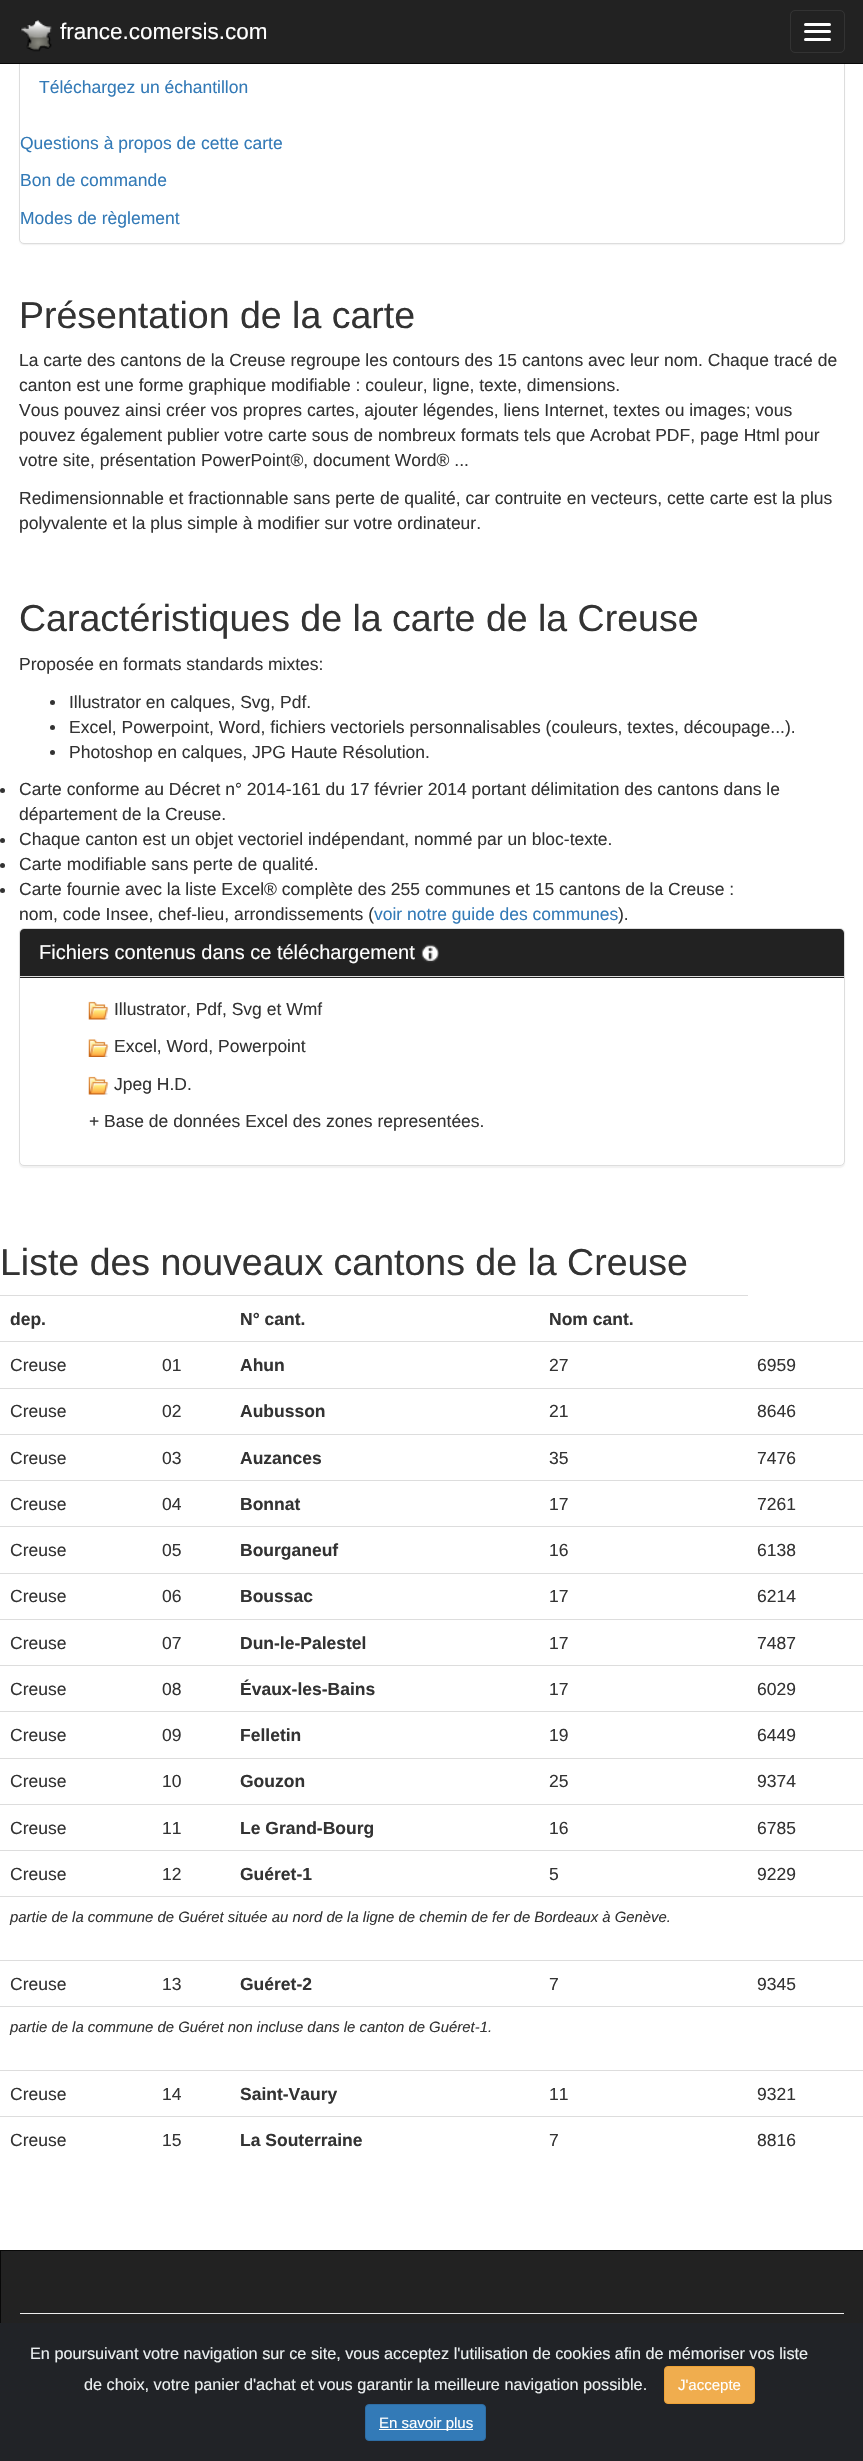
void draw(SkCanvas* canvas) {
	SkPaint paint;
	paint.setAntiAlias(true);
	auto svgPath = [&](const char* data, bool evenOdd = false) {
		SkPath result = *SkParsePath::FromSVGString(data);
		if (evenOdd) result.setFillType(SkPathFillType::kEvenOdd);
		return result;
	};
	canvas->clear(0xffffffff);
	paint.setColor(0x0d000000);
	paint.setMaskFilter(SkMaskFilter::MakeBlur(kNormal_SkBlurStyle, 0.5));
	canvas->drawRoundRect(SkRect::MakeXYWH(19, -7, 826, 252), 5, 5, paint);
	paint.setMaskFilter(nullptr);
	paint.setColor(0xffffffff);
	canvas->drawRoundRect(SkRect::MakeXYWH(19.5, -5.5, 825, 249), 4.5, 4.5, paint);
	paint.setStroke(true);
	paint.setStrokeWidth(1);
	paint.setColor(0xffdddddd);
	canvas->drawRoundRect(SkRect::MakeXYWH(19.5, -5.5, 825, 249), 4.5, 4.5, paint);
	paint.setStroke(false);
	paint.setColor(0xff222222);
	canvas->drawRect(SkRect::MakeXYWH(0, 0, 863, 63), paint);
	paint.setColor(0xff080808);
	canvas->drawRect(SkRect::MakeXYWH(0, 63, 863, 1), paint);
	canvas->drawImageRect(SkImages::DeferredFromEncodedData(SkData::MakeFromFileName("img1.png")), SkRect::MakeXYWH(20, 20, 32, 32), SkSamplingOptions());
	SkFont f1(fontMgr->matchFamilyStyle("Liberation Sans", SkFontStyle::Normal()), 22.5);
	f1.setSubpixel(true);
	paint.setColor(0xffffffff);
	canvas->drawString("france.comersis.com", 60, 39, f1, paint);
	paint.setStroke(true);
	paint.setColor(0xff333333);
	canvas->drawRoundRect(SkRect::MakeXYWH(790.5, 10.5, 54, 42), 4.5, 4.5, paint);
	paint.setStroke(false);
	paint.setColor(0xffffffff);
	canvas->drawRoundRect(SkRect::MakeXYWH(804, 23, 27, 3), 1.5, 1.5, paint);
	canvas->drawRoundRect(SkRect::MakeXYWH(804, 30, 27, 3), 1.5, 1.5, paint);
	canvas->drawRoundRect(SkRect::MakeXYWH(804, 38, 27, 3), 1.5, 1.5, paint);
	SkFont f2(fontMgr->matchFamilyStyle("Liberation Sans", SkFontStyle::Normal()), 17.5);
	f2.setSubpixel(true);
	paint.setColor(0xff337ab7);
	canvas->drawString("Téléchargez un échantillon", 39, 93, f2, paint);
	canvas->drawString("Questions à propos de cette carte", 20, 149, f2, paint);
	canvas->drawString("Bon de commande", 20, 186, f2, paint);
	canvas->drawString("Modes de règlement", 20, 224, f2, paint);
	SkFont f3(fontMgr->matchFamilyStyle("Liberation Sans", SkFontStyle::Normal()), 37.5);
	f3.setSubpixel(true);
	paint.setColor(0xff333333);
	canvas->drawString("Présentation de la carte", 19, 328, f3, paint);
	canvas->drawString("La carte des cantons de la Creuse regroupe les contours des 15 cantons avec leur nom. Chaque tracé de", 19, 366, f2, paint);
	canvas->drawString("canton est une forme graphique modifiable : couleur, ligne, texte, dimensions.", 19, 391, f2, paint);
	canvas->drawString("Vous pouvez ainsi créer vos propres cartes, ajouter légendes, liens Internet, textes ou images; vous", 19, 416, f2, paint);
	canvas->drawString("pouvez également publier votre carte sous de nombreux formats tels que Acrobat PDF, page Html pour", 19, 441, f2, paint);
	canvas->drawString("votre site, présentation PowerPoint®, document Word® ...", 19, 466, f2, paint);
	canvas->drawString("Redimensionnable et fractionnable sans perte de qualité, car contruite en vecteurs, cette carte est la plus", 19, 504, f2, paint);
	canvas->drawString("polyvalente et la plus simple à modifier sur votre ordinateur.", 19, 529, f2, paint);
	canvas->drawString("Caractéristiques de la carte de la Creuse", 19, 631, f3, paint);
	canvas->drawString("Proposée en formats standards mixtes:", 19, 670, f2, paint);
	canvas->drawCircle(52.5, 702.5, 2.5, paint);
	canvas->drawString("Illustrator en calques, Svg, Pdf.", 69, 708, f2, paint);
	canvas->drawCircle(52.5, 727.5, 2.5, paint);
	canvas->drawString("Excel, Powerpoint, Word, fichiers vectoriels personnalisables (couleurs, textes, découpage...).", 69, 733, f2, paint);
	canvas->drawCircle(52.5, 752.5, 2.5, paint);
	canvas->drawString("Photoshop en calques, JPG Haute Résolution.", 69, 758, f2, paint);
	canvas->drawCircle(2.5, 790.5, 2.5, paint);
	canvas->drawString("Carte conforme au Décret n° 2014-161 du 17 février 2014 portant délimitation des cantons dans le", 19, 795, f2, paint);
	canvas->drawString("département de la Creuse.", 19, 820, f2, paint);
	canvas->drawCircle(2.5, 840.5, 2.5, paint);
	canvas->drawString("Chaque canton est un objet vectoriel indépendant, nommé par un bloc-texte.", 19, 845, f2, paint);
	canvas->drawCircle(2.5, 865.5, 2.5, paint);
	canvas->drawString("Carte modifiable sans perte de qualité.", 19, 870, f2, paint);
	canvas->drawCircle(2.5, 890.5, 2.5, paint);
	canvas->drawString("Carte fournie avec la liste Excel® complète des 255 communes et 15 cantons de la Creuse :", 19, 895, f2, paint);
	canvas->drawString("nom, code Insee, chef-lieu, arrondissements (", 19, 920, f2, paint);
	paint.setColor(0xff337ab7);
	canvas->drawString("voir notre guide des communes", 374, 920, f2, paint);
	paint.setColor(0xff333333);
	canvas->drawString(").", 618, 920, f2, paint);
	paint.setColor(0x0d000000);
	paint.setMaskFilter(SkMaskFilter::MakeBlur(kNormal_SkBlurStyle, 0.5));
	canvas->drawRoundRect(SkRect::MakeXYWH(19, 929, 826, 239), 5, 5, paint);
	paint.setMaskFilter(nullptr);
	paint.setColor(0xffffffff);
	canvas->drawRoundRect(SkRect::MakeXYWH(19.5, 928.5, 825, 237), 4.5, 4.5, paint);
	paint.setStroke(true);
	paint.setColor(0xffdddddd);
	canvas->drawRoundRect(SkRect::MakeXYWH(19.5, 928.5, 825, 237), 4.5, 4.5, paint);
	paint.setStroke(false);
	paint.setColor(0xff222222);
	canvas->drawPath(svgPath("M24 929H840C842 929 844 931 844 933V978H20V933C20 931 22 929 24 929Z"), paint);
	paint.setColor(0xffdddddd);
	canvas->drawRect(SkRect::MakeXYWH(20, 976, 824, 1), paint);
	SkFont f4(fontMgr->matchFamilyStyle("Liberation Sans", SkFontStyle::Normal()), 20);
	f4.setSubpixel(true);
	paint.setColor(0xffffffff);
	canvas->drawString("Fichiers contenus dans ce téléchargement", 39, 959, f4, paint);
	canvas->drawImageRect(SkImages::DeferredFromEncodedData(SkData::MakeFromFileName("img2.png")), SkRect::MakeXYWH(421, 944, 18, 19), SkSamplingOptions());
	canvas->drawImageRect(SkImages::DeferredFromEncodedData(SkData::MakeFromFileName("img3.png")), SkRect::MakeXYWH(88, 1001, 21, 19), SkSamplingOptions());
	paint.setColor(0xff333333);
	canvas->drawString("Illustrator, Pdf, Svg et Wmf", 114, 1015, f2, paint);
	canvas->drawImageRect(SkImages::DeferredFromEncodedData(SkData::MakeFromFileName("img4.png")), SkRect::MakeXYWH(88, 1039, 21, 18), SkSamplingOptions());
	canvas->drawString("Excel, Word, Powerpoint", 114, 1052, f2, paint);
	canvas->drawImageRect(SkImages::DeferredFromEncodedData(SkData::MakeFromFileName("img3.png")), SkRect::MakeXYWH(88, 1076, 21, 19), SkSamplingOptions());
	canvas->drawString("Jpeg H.D.", 114, 1090, f2, paint);
	canvas->drawString("+ Base de données Excel des zones representées.", 89, 1127, f2, paint);
	canvas->drawString("Liste des nouveaux cantons de la Creuse", 0, 1275, f3, paint);
	SkFont f5(fontMgr->matchFamilyStyle("Liberation Sans", SkFontStyle::Bold()), 17.5);
	f5.setSubpixel(true);
	canvas->drawString("dep.", 10, 1325, f5, paint);
	canvas->drawString("N° cant.", 240, 1325, f5, paint);
	paint.setColor(0xffdddddd);
	canvas->drawRect(SkRect::MakeXYWH(0, 1295, 748, 1), paint);
	paint.setColor(0xff333333);
	canvas->drawString("Nom cant.", 549, 1325, f5, paint);
	canvas->drawString("Creuse", 10, 1371, f2, paint);
	canvas->drawString("01", 162, 1371, f2, paint);
	canvas->drawString("Ahun", 240, 1371, f5, paint);
	canvas->drawString("27", 549, 1371, f2, paint);
	paint.setColor(0xffdddddd);
	canvas->drawRect(SkRect::MakeXYWH(0, 1341, 863, 1), paint);
	paint.setColor(0xff333333);
	canvas->drawString("6959", 757, 1371, f2, paint);
	canvas->drawString("Creuse", 10, 1417, f2, paint);
	canvas->drawString("02", 162, 1417, f2, paint);
	canvas->drawString("Aubusson", 240, 1417, f5, paint);
	canvas->drawString("21", 549, 1417, f2, paint);
	paint.setColor(0xffdddddd);
	canvas->drawRect(SkRect::MakeXYWH(0, 1388, 863, 1), paint);
	paint.setColor(0xff333333);
	canvas->drawString("8646", 757, 1417, f2, paint);
	canvas->drawString("Creuse", 10, 1464, f2, paint);
	canvas->drawString("03", 162, 1464, f2, paint);
	canvas->drawString("Auzances", 240, 1464, f5, paint);
	canvas->drawString("35", 549, 1464, f2, paint);
	paint.setColor(0xffdddddd);
	canvas->drawRect(SkRect::MakeXYWH(0, 1434, 863, 1), paint);
	paint.setColor(0xff333333);
	canvas->drawString("7476", 757, 1464, f2, paint);
	canvas->drawString("Creuse", 10, 1510, f2, paint);
	canvas->drawString("04", 162, 1510, f2, paint);
	canvas->drawString("Bonnat", 240, 1510, f5, paint);
	canvas->drawString("17", 549, 1510, f2, paint);
	paint.setColor(0xffdddddd);
	canvas->drawRect(SkRect::MakeXYWH(0, 1480, 863, 1), paint);
	paint.setColor(0xff333333);
	canvas->drawString("7261", 757, 1510, f2, paint);
	canvas->drawString("Creuse", 10, 1556, f2, paint);
	canvas->drawString("05", 162, 1556, f2, paint);
	canvas->drawString("Bourganeuf", 240, 1556, f5, paint);
	canvas->drawString("16", 549, 1556, f2, paint);
	paint.setColor(0xffdddddd);
	canvas->drawRect(SkRect::MakeXYWH(0, 1526, 863, 1), paint);
	paint.setColor(0xff333333);
	canvas->drawString("6138", 757, 1556, f2, paint);
	canvas->drawString("Creuse", 10, 1602, f2, paint);
	canvas->drawString("06", 162, 1602, f2, paint);
	canvas->drawString("Boussac", 240, 1602, f5, paint);
	canvas->drawString("17", 549, 1602, f2, paint);
	paint.setColor(0xffdddddd);
	canvas->drawRect(SkRect::MakeXYWH(0, 1573, 863, 1), paint);
	paint.setColor(0xff333333);
	canvas->drawString("6214", 757, 1602, f2, paint);
	canvas->drawString("Creuse", 10, 1649, f2, paint);
	canvas->drawString("07", 162, 1649, f2, paint);
	canvas->drawString("Dun-le-Palestel", 240, 1649, f5, paint);
	canvas->drawString("17", 549, 1649, f2, paint);
	paint.setColor(0xffdddddd);
	canvas->drawRect(SkRect::MakeXYWH(0, 1619, 863, 1), paint);
	paint.setColor(0xff333333);
	canvas->drawString("7487", 757, 1649, f2, paint);
	canvas->drawString("Creuse", 10, 1695, f2, paint);
	canvas->drawString("08", 162, 1695, f2, paint);
	canvas->drawString("Évaux-les-Bains", 240, 1695, f5, paint);
	canvas->drawString("17", 549, 1695, f2, paint);
	paint.setColor(0xffdddddd);
	canvas->drawRect(SkRect::MakeXYWH(0, 1665, 863, 1), paint);
	paint.setColor(0xff333333);
	canvas->drawString("6029", 757, 1695, f2, paint);
	canvas->drawString("Creuse", 10, 1741, f2, paint);
	canvas->drawString("09", 162, 1741, f2, paint);
	canvas->drawString("Felletin", 240, 1741, f5, paint);
	canvas->drawString("19", 549, 1741, f2, paint);
	paint.setColor(0xffdddddd);
	canvas->drawRect(SkRect::MakeXYWH(0, 1711, 863, 1), paint);
	paint.setColor(0xff333333);
	canvas->drawString("6449", 757, 1741, f2, paint);
	canvas->drawString("Creuse", 10, 1787, f2, paint);
	canvas->drawString("10", 162, 1787, f2, paint);
	canvas->drawString("Gouzon", 240, 1787, f5, paint);
	canvas->drawString("25", 549, 1787, f2, paint);
	paint.setColor(0xffdddddd);
	canvas->drawRect(SkRect::MakeXYWH(0, 1758, 863, 1), paint);
	paint.setColor(0xff333333);
	canvas->drawString("9374", 757, 1787, f2, paint);
	canvas->drawString("Creuse", 10, 1834, f2, paint);
	canvas->drawString("11", 162, 1834, f2, paint);
	canvas->drawString("Le Grand-Bourg", 240, 1834, f5, paint);
	canvas->drawString("16", 549, 1834, f2, paint);
	paint.setColor(0xffdddddd);
	canvas->drawRect(SkRect::MakeXYWH(0, 1804, 863, 1), paint);
	paint.setColor(0xff333333);
	canvas->drawString("6785", 757, 1834, f2, paint);
	canvas->drawString("Creuse", 10, 1880, f2, paint);
	canvas->drawString("12", 162, 1880, f2, paint);
	canvas->drawString("Guéret-1", 240, 1880, f5, paint);
	canvas->drawString("5", 549, 1880, f2, paint);
	paint.setColor(0xffdddddd);
	canvas->drawRect(SkRect::MakeXYWH(0, 1850, 863, 1), paint);
	paint.setColor(0xff333333);
	canvas->drawString("9229", 757, 1880, f2, paint);
	paint.setColor(0xffdddddd);
	canvas->drawRect(SkRect::MakeXYWH(0, 1896, 863, 1), paint);
	SkFont f6(fontMgr->matchFamilyStyle("Liberation Sans", SkFontStyle::Italic()), 14.9);
	f6.setSubpixel(true);
	paint.setColor(0xff333333);
	canvas->drawString("partie de la commune de Guéret située au nord de la ligne de chemin de fer de Bordeaux à Genève.", 10, 1922, f6, paint);
	canvas->drawString("Creuse", 10, 1990, f2, paint);
	canvas->drawString("13", 162, 1990, f2, paint);
	canvas->drawString("Guéret-2", 240, 1990, f5, paint);
	canvas->drawString("7", 549, 1990, f2, paint);
	paint.setColor(0xffdddddd);
	canvas->drawRect(SkRect::MakeXYWH(0, 1960, 863, 1), paint);
	paint.setColor(0xff333333);
	canvas->drawString("9345", 757, 1990, f2, paint);
	paint.setColor(0xffdddddd);
	canvas->drawRect(SkRect::MakeXYWH(0, 2006, 863, 1), paint);
	paint.setColor(0xff333333);
	canvas->drawString("partie de la commune de Guéret non incluse dans le canton de Guéret-1.", 10, 2032, f6, paint);
	canvas->drawString("Creuse", 10, 2100, f2, paint);
	canvas->drawString("14", 162, 2100, f2, paint);
	canvas->drawString("Saint-Vaury", 240, 2100, f5, paint);
	canvas->drawString("11", 549, 2100, f2, paint);
	paint.setColor(0xffdddddd);
	canvas->drawRect(SkRect::MakeXYWH(0, 2070, 863, 1), paint);
	paint.setColor(0xff333333);
	canvas->drawString("9321", 757, 2100, f2, paint);
	canvas->drawString("Creuse", 10, 2146, f2, paint);
	canvas->drawString("15", 162, 2146, f2, paint);
	canvas->drawString("La Souterraine", 240, 2146, f5, paint);
	canvas->drawString("7", 549, 2146, f2, paint);
	paint.setColor(0xffdddddd);
	canvas->drawRect(SkRect::MakeXYWH(0, 2116, 863, 1), paint);
	paint.setColor(0xff333333);
	canvas->drawString("8816", 757, 2146, f2, paint);
	paint.setColor(0xff222222);
	canvas->drawRect(SkRect::MakeXYWH(1, 2251, 862, 72), paint);
	paint.setStroke(true);
	paint.setColor(0xff080808);
	canvas->drawRect(SkRect::MakeXYWH(0.5, 2250.5, 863, 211), paint);
	paint.setStroke(false);
	paint.setColor(0xffeeeeee);
	canvas->drawRect(SkRect::MakeXYWH(20, 2313, 824, 1), paint);
	paint.setColor(0xff212327);
	canvas->drawRect(SkRect::MakeXYWH(0, 2323, 863, 138), paint);
	SkFont f7(fontMgr->matchFamilyStyle("Liberation Sans", SkFontStyle::Normal()), 16.25);
	f7.setSubpixel(true);
	paint.setColor(0xffecf0f1);
	canvas->drawString("En poursuivant votre navigation sur ce site, vous acceptez l'utilisation de cookies afin de mémoriser vos liste", 30, 2359, f7, paint);
	canvas->drawString("de choix, votre panier d'achat et vous garantir la meilleure navigation possible.", 84, 2390, f7, paint);
	paint.setColor(0xfff0ad4e);
	canvas->drawRoundRect(SkRect::MakeXYWH(664.5, 2366.5, 90, 37), 3.5, 3.5, paint);
	paint.setStroke(true);
	paint.setColor(0xffeea236);
	canvas->drawRoundRect(SkRect::MakeXYWH(664.5, 2366.5, 90, 37), 3.5, 3.5, paint);
	SkFont f8(fontMgr->matchFamilyStyle("Liberation Sans", SkFontStyle::Normal()), 15);
	f8.setSubpixel(true);
	paint.setStroke(false);
	paint.setColor(0xffffffff);
	canvas->drawString("J'accepte", 678, 2390, f8, paint);
	paint.setColor(0xff337ab7);
	canvas->drawRoundRect(SkRect::MakeXYWH(365.5, 2404.5, 120, 36), 3.5, 3.5, paint);
	paint.setStroke(true);
	paint.setColor(0xff2e6da4);
	canvas->drawRoundRect(SkRect::MakeXYWH(365.5, 2404.5, 120, 36), 3.5, 3.5, paint);
	paint.setStroke(false);
	paint.setColor(0xffffffff);
	canvas->drawRect(SkRect::MakeXYWH(379, 2429, 94, 1), paint);
	canvas->drawString("En savoir plus", 379, 2428, f8, paint);
}
